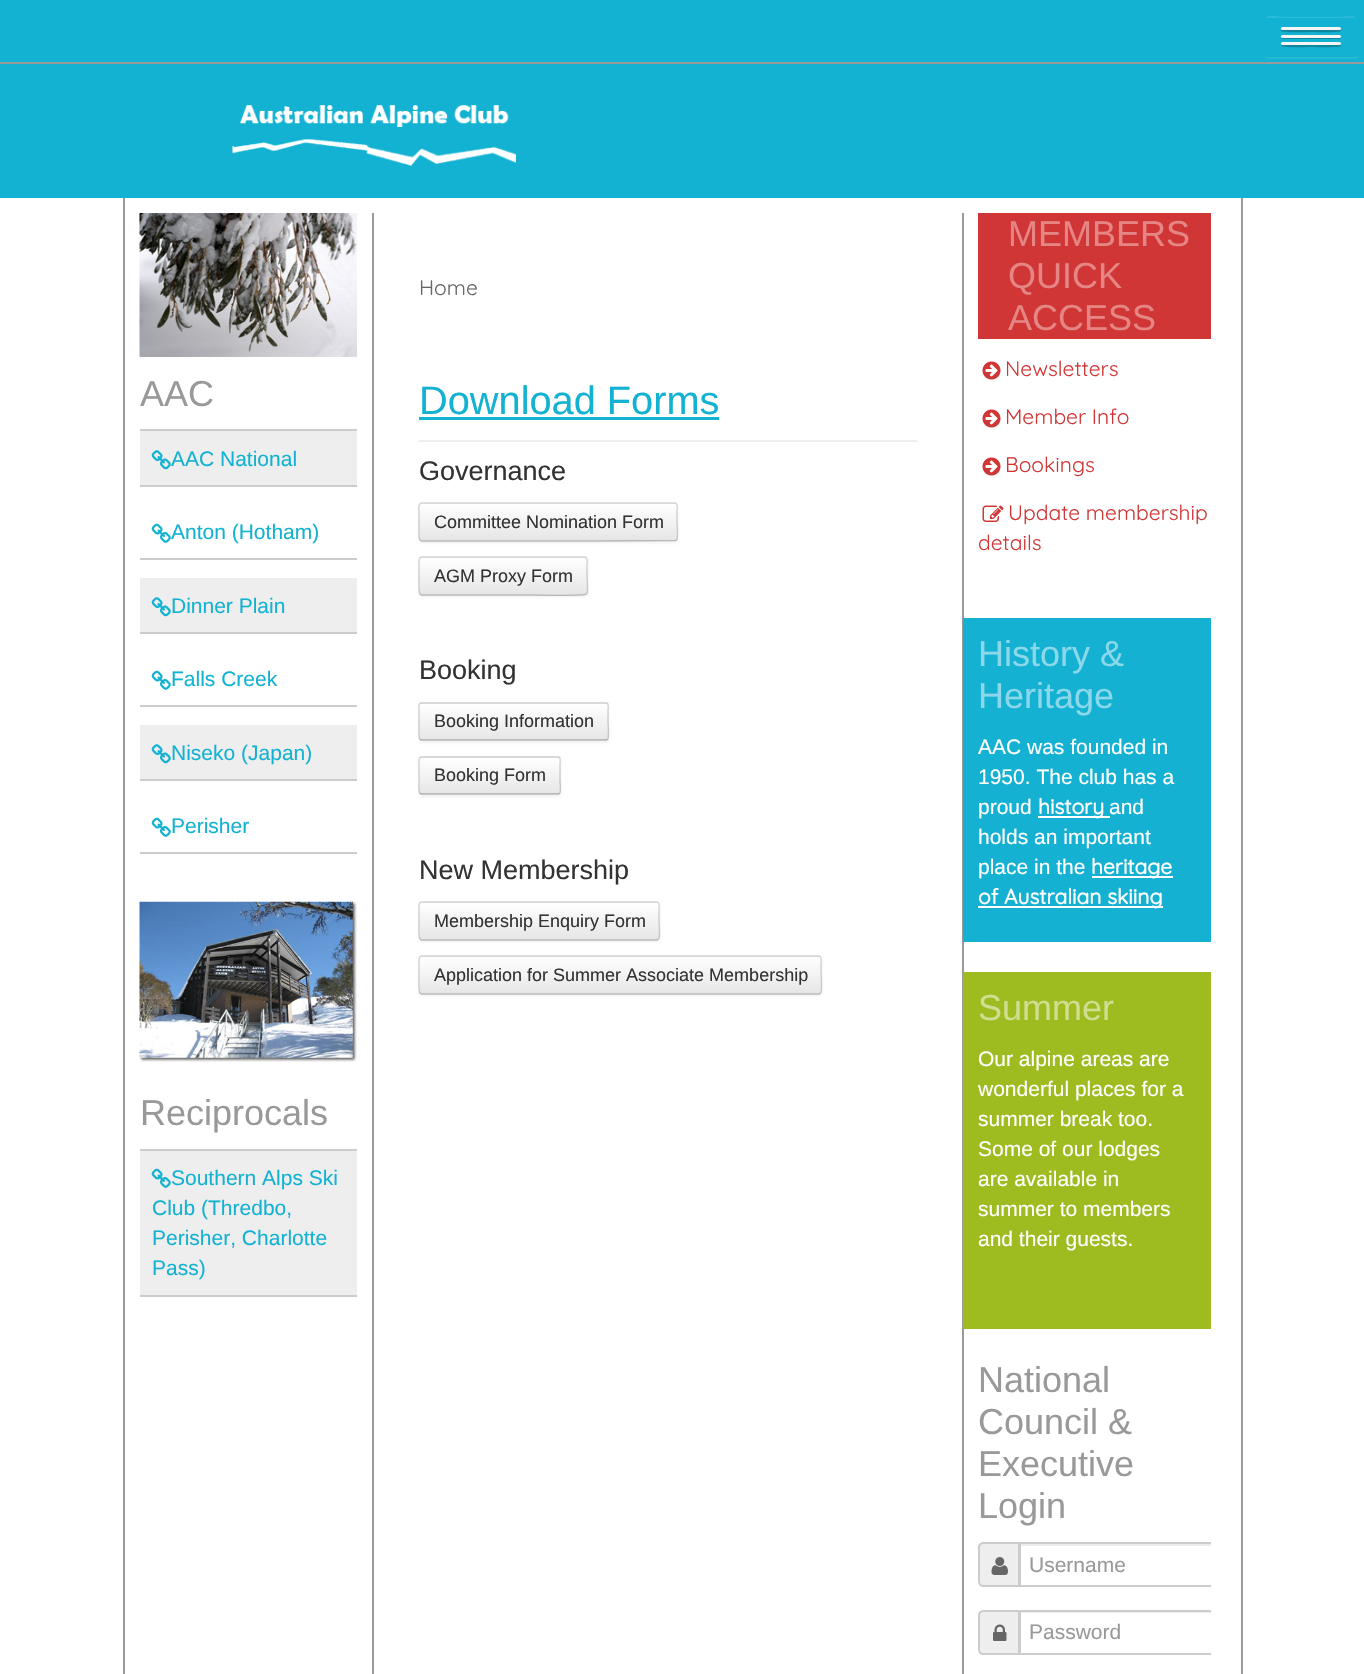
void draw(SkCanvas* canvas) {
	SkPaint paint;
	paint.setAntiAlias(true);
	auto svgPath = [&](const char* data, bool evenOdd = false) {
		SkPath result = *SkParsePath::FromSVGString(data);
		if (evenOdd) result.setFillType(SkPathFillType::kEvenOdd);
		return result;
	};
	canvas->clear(0xffffffff);
	paint.setColor(0xff13b2d2);
	canvas->drawRect(SkRect::MakeXYWH(0, 0, 1364, 198), paint);
	paint.setColor(0xff25b8d5);
	canvas->drawPath(svgPath("M1265 56C1265 58 1266 59 1268 59H1355C1357 59 1358 58 1358 56V20V18V54C1358 56 1356 57 1354 57H1268C1266 57 1266 56 1265 56Z"), paint);
	paint.setColor(0xff2bbad7);
	canvas->drawPath(svgPath("M1268 18H1354C1355 18 1356 19 1356 20C1356 13 1346 17 1340 17H1282C1276 17 1266 13 1266 20C1266 19 1267 18 1268 18Z"), paint);
	paint.setColor(0xff0e869e);
	canvas->drawPath(svgPath("M1281 29V31C1282 33 1308 32 1311 32C1314 32 1340 33 1341 31V29L1340 30H1282Z"), paint);
	paint.setColor(0xfff5f5f5);
	canvas->drawRoundRect(SkRect::MakeXYWH(1281, 27, 60, 3), 1.5, 1.5, paint);
	paint.setColor(0xff0e869e);
	canvas->drawPath(svgPath("M1281 37C1280 39 1281 39 1292 39H1340C1341 38 1341 37 1341 37H1340L1292 38H1282Z"), paint);
	paint.setColor(0xfff5f5f5);
	canvas->drawRoundRect(SkRect::MakeXYWH(1281, 35, 60, 3), 1.5, 1.5, paint);
	paint.setColor(0xff0e869e);
	canvas->drawPath(svgPath("M1281 44V46C1282 48 1308 47 1311 47C1314 47 1340 48 1341 46V44L1340 45H1282Z"), paint);
	paint.setColor(0xfff5f5f5);
	canvas->drawRoundRect(SkRect::MakeXYWH(1281, 42, 60, 3), 1.5, 1.5, paint);
	paint.setColor(0xff999999);
	canvas->drawRect(SkRect::MakeXYWH(0, 62, 1364, 2), paint);
	canvas->drawImageRect(SkImages::DeferredFromEncodedData(SkData::MakeFromFileName("img1.png")), SkRect::MakeXYWH(232, 105, 284, 61), SkSamplingOptions());
	canvas->drawRect(SkRect::MakeXYWH(1241, 198, 2, 1476), paint);
	canvas->drawRect(SkRect::MakeXYWH(123, 198, 2, 1476), paint);
	canvas->drawRect(SkRect::MakeXYWH(372, 213, 2, 1461), paint);
	canvas->drawImageRect(SkImages::DeferredFromEncodedData(SkData::MakeFromFileName("img2.png")), SkRect::MakeXYWH(139, 213, 218, 144), SkSamplingOptions());
	SkFont f1(fontMgr->matchFamilyStyle("Liberation Sans", SkFontStyle::Normal()), 36);
	f1.setSubpixel(true);
	canvas->drawString("AAC", 140, 406, f1, paint);
	paint.setColor(0xffcccccc);
	canvas->drawRect(SkRect::MakeXYWH(140, 429, 217, 2), paint);
	paint.setColor(0xffeeeeee);
	canvas->drawRect(SkRect::MakeXYWH(140, 431, 217, 54), paint);
	paint.setColor(0xffcccccc);
	canvas->drawRect(SkRect::MakeXYWH(140, 485, 217, 2), paint);
	canvas->drawImageRect(SkImages::DeferredFromEncodedData(SkData::MakeFromFileName("img3.png")), SkRect::MakeXYWH(151, 450, 20, 20), SkSamplingOptions());
	SkFont f2(fontMgr->matchFamilyStyle("Liberation Sans", SkFontStyle::Normal()), 21);
	f2.setSubpixel(true);
	paint.setColor(0xff13b2d2);
	canvas->drawString("AAC National", 171, 466, f2, paint);
	paint.setColor(0xffcccccc);
	canvas->drawRect(SkRect::MakeXYWH(140, 558, 217, 2), paint);
	canvas->drawImageRect(SkImages::DeferredFromEncodedData(SkData::MakeFromFileName("img4.png")), SkRect::MakeXYWH(151, 523, 20, 20), SkSamplingOptions());
	paint.setColor(0xff13b2d2);
	canvas->drawString("Anton (Hotham)", 171, 539, f2, paint);
	paint.setColor(0xffeeeeee);
	canvas->drawRect(SkRect::MakeXYWH(140, 578, 217, 54), paint);
	paint.setColor(0xffcccccc);
	canvas->drawRect(SkRect::MakeXYWH(140, 632, 217, 2), paint);
	canvas->drawImageRect(SkImages::DeferredFromEncodedData(SkData::MakeFromFileName("img3.png")), SkRect::MakeXYWH(151, 597, 20, 20), SkSamplingOptions());
	paint.setColor(0xff13b2d2);
	canvas->drawString("Dinner Plain", 171, 613, f2, paint);
	paint.setColor(0xffcccccc);
	canvas->drawRect(SkRect::MakeXYWH(140, 705, 217, 2), paint);
	canvas->drawImageRect(SkImages::DeferredFromEncodedData(SkData::MakeFromFileName("img4.png")), SkRect::MakeXYWH(151, 670, 20, 20), SkSamplingOptions());
	paint.setColor(0xff13b2d2);
	canvas->drawString("Falls Creek", 171, 686, f2, paint);
	paint.setColor(0xffeeeeee);
	canvas->drawRect(SkRect::MakeXYWH(140, 725, 217, 54), paint);
	paint.setColor(0xffcccccc);
	canvas->drawRect(SkRect::MakeXYWH(140, 779, 217, 2), paint);
	canvas->drawImageRect(SkImages::DeferredFromEncodedData(SkData::MakeFromFileName("img3.png")), SkRect::MakeXYWH(151, 744, 20, 20), SkSamplingOptions());
	paint.setColor(0xff13b2d2);
	canvas->drawString("Niseko (Japan)", 171, 760, f2, paint);
	paint.setColor(0xffcccccc);
	canvas->drawRect(SkRect::MakeXYWH(140, 852, 217, 2), paint);
	canvas->drawImageRect(SkImages::DeferredFromEncodedData(SkData::MakeFromFileName("img4.png")), SkRect::MakeXYWH(151, 817, 20, 20), SkSamplingOptions());
	paint.setColor(0xff13b2d2);
	canvas->drawString("Perisher", 171, 833, f2, paint);
	canvas->drawImageRect(SkImages::DeferredFromEncodedData(SkData::MakeFromFileName("img5.png")), SkRect::MakeXYWH(139, 901, 218, 161), SkSamplingOptions());
	paint.setColor(0xff999999);
	canvas->drawString("Reciprocals", 140, 1125, f1, paint);
	paint.setColor(0xffcccccc);
	canvas->drawRect(SkRect::MakeXYWH(140, 1149, 217, 2), paint);
	paint.setColor(0xffeeeeee);
	canvas->drawRect(SkRect::MakeXYWH(140, 1151, 217, 144), paint);
	paint.setColor(0xffcccccc);
	canvas->drawRect(SkRect::MakeXYWH(140, 1295, 217, 2), paint);
	canvas->drawImageRect(SkImages::DeferredFromEncodedData(SkData::MakeFromFileName("img6.png")), SkRect::MakeXYWH(151, 1168, 20, 20), SkSamplingOptions());
	paint.setColor(0xff13b2d2);
	canvas->drawString("Southern Alps Ski", 171, 1185, f2, paint);
	canvas->drawString("Club (Thredbo,", 152, 1215, f2, paint);
	canvas->drawString("Perisher, Charlotte", 152, 1245, f2, paint);
	canvas->drawString("Pass)", 152, 1275, f2, paint);
	SkFont f3(fontMgr->matchFamilyStyle("Quicksand", SkFontStyle(300, SkFontStyle::kNormal_Width, SkFontStyle::kUpright_Slant)), 21);
	f3.setSubpixel(true);
	paint.setColor(0xff666666);
	canvas->drawString("Home", 419, 295, f3, paint);
	paint.setColor(0xffeeeeee);
	canvas->drawRect(SkRect::MakeXYWH(419, 440, 498, 2), paint);
	SkFont f4(fontMgr->matchFamilyStyle("Liberation Sans", SkFontStyle::Normal()), 39.75);
	f4.setSubpixel(true);
	paint.setColor(0xff13b2d2);
	canvas->drawString("Download Forms", 419, 414, f4, paint);
	canvas->drawRect(SkRect::MakeXYWH(419, 417, 300, 3), paint);
	SkFont f5(fontMgr->matchFamilyStyle("Liberation Sans", SkFontStyle::Normal()), 27);
	f5.setSubpixel(true);
	paint.setColor(0xff333333);
	canvas->drawString("Governance", 419, 480, f5, paint);
	paint.setColor(0x0d000000);
	paint.setMaskFilter(SkMaskFilter::MakeBlur(kNormal_SkBlurStyle, 1.5));
	canvas->drawRoundRect(SkRect::MakeXYWH(419, 504, 259, 39), 3, 3, paint);
	paint.setMaskFilter(nullptr);
	paint.setColor(0xfff5f5f5);
	canvas->drawRoundRect(SkRect::MakeXYWH(419, 503, 259, 39), 3, 3, paint);
	canvas->save();
	canvas->clipPath(svgPath("M422 503H675C676.5 503 678 504.5 678 506V539C678 540.5 676.5 542 675 542H422C420.5 542 419 540.5 419 539V506C419 504.5 420.5 503 422 503Z"), true);
	{
		const SkColor colors[] = {0xffffffff, 0xffe6e6e6};
		const float stops[] = {0, 1};
		const SkPoint ends[] = {{548, 504}, {548, 540}};
		paint.setShader(SkGradientShader::MakeLinear(ends, colors, stops, 2, SkTileMode::kClamp));
		paint.setAlpha(255);
	}
	canvas->drawRect(SkRect::MakeXYWH(419, 504, 259, 36), paint);
	canvas->restore();
	paint.setShader(nullptr);
	paint.setColor(0x33ffffff);
	canvas->drawPath(svgPath("M422 506H675C676 506 676 506 676 507V540C677 540 677 539 677 538V506C677 505 676 504 676 504H422C421 504 420 505 420 506V507C420 506 421 506 422 506Z"), paint);
	paint.setStroke(true);
	paint.setStrokeWidth(1.5);
	paint.setColor(0xffb8b8b8);
	canvas->drawPath(svgPath("M676.5 540L675.5 540.5L590.5 541H421.5L420 540"), paint);
	paint.setColor(0x26000000);
	canvas->drawPath(svgPath("M420 540C418 538.5 419 525 419 522V511C419 509.5 418 503.5 421.5 503H675C678.5 503.5 677 509.5 677 511V522C677 525 678.5 538.5 676.5 540"), paint);
	SkFont f6(fontMgr->matchFamilyStyle("Liberation Sans", SkFontStyle::Normal()), 18);
	f6.setSubpixel(true);
	paint.setStroke(false);
	paint.setColor(0xff333333);
	canvas->drawString("Committee Nomination Form", 434, 528, f6, paint);
	paint.setColor(0x0d000000);
	paint.setMaskFilter(SkMaskFilter::MakeBlur(kNormal_SkBlurStyle, 1.5));
	canvas->drawRoundRect(SkRect::MakeXYWH(419, 558, 169, 39), 3, 3, paint);
	paint.setMaskFilter(nullptr);
	paint.setColor(0xfff5f5f5);
	canvas->drawRoundRect(SkRect::MakeXYWH(419, 557, 169, 39), 3, 3, paint);
	canvas->save();
	canvas->clipPath(svgPath("M422 557H585C586.5 557 588 558.5 588 560V593C588 594.5 586.5 596 585 596H422C420.5 596 419 594.5 419 593V560C419 558.5 420.5 557 422 557Z"), true);
	{
		const SkColor colors[] = {0xffffffff, 0xffe6e6e6};
		const float stops[] = {0, 1};
		const SkPoint ends[] = {{503, 558}, {503, 594}};
		paint.setShader(SkGradientShader::MakeLinear(ends, colors, stops, 2, SkTileMode::kClamp));
		paint.setAlpha(255);
	}
	canvas->drawRect(SkRect::MakeXYWH(419, 558, 169, 36), paint);
	canvas->restore();
	paint.setShader(nullptr);
	paint.setColor(0x33ffffff);
	canvas->drawPath(svgPath("M422 560H585C586 560 586 560 586 561V594C587 594 587 593 587 592V560C587 559 586 558 586 558H422C421 558 420 559 420 560V561C420 560 421 560 422 560Z"), paint);
	paint.setStroke(true);
	paint.setColor(0xffb8b8b8);
	canvas->drawPath(svgPath("M586.5 594C585 596 534 595 530.5 595H421.5L420 594"), paint);
	paint.setColor(0x26000000);
	canvas->drawPath(svgPath("M420 594C418 592.5 419 579 419 576V565C419 563.5 418 557.5 421.5 557H585C588.5 557.5 587 563.5 587 565V576C587 579 588.5 592.5 586.5 594"), paint);
	paint.setStroke(false);
	paint.setColor(0xff333333);
	canvas->drawString("AGM Proxy Form", 434, 582, f6, paint);
	canvas->drawString("Booking", 419, 679, f5, paint);
	paint.setColor(0x0d000000);
	paint.setMaskFilter(SkMaskFilter::MakeBlur(kNormal_SkBlurStyle, 1.5));
	canvas->drawRoundRect(SkRect::MakeXYWH(419, 704, 190, 39), 3, 3, paint);
	paint.setMaskFilter(nullptr);
	paint.setColor(0xfff5f5f5);
	canvas->drawRoundRect(SkRect::MakeXYWH(419, 702, 190, 39), 3, 3, paint);
	canvas->save();
	canvas->clipPath(svgPath("M422 702H606C607.5 702 609 703.5 609 705V738C609 739.5 607.5 741 606 741H422C420.5 741 419 739.5 419 738V705C419 703.5 420.5 702 422 702Z"), true);
	{
		const SkColor colors[] = {0xffffffff, 0xffe6e6e6};
		const float stops[] = {0, 1};
		const SkPoint ends[] = {{514, 704}, {514, 740}};
		paint.setShader(SkGradientShader::MakeLinear(ends, colors, stops, 2, SkTileMode::kClamp));
		paint.setAlpha(255);
	}
	canvas->drawRect(SkRect::MakeXYWH(419, 704, 190, 36), paint);
	canvas->restore();
	paint.setStroke(true);
	paint.setShader(nullptr);
	paint.setColor(0x40000000);
	canvas->drawPath(svgPath("M607.5 739.5L606 740H421.5L420 739.5"), paint);
	paint.setColor(0x26000000);
	canvas->drawPath(svgPath("M420 739.5C418 738 419 724.5 419 721.5V710.5C419 709 418 703 421.5 703H606C609.5 703 608 709 608 710.5V721.5C608 724.5 609.5 738 607.5 739.5"), paint);
	paint.setStroke(false);
	paint.setColor(0xff333333);
	canvas->drawString("Booking Information", 434, 727, f6, paint);
	paint.setColor(0x0d000000);
	paint.setMaskFilter(SkMaskFilter::MakeBlur(kNormal_SkBlurStyle, 1.5));
	canvas->drawRoundRect(SkRect::MakeXYWH(419, 758, 142, 39), 3, 3, paint);
	paint.setMaskFilter(nullptr);
	paint.setColor(0xfff5f5f5);
	canvas->drawRoundRect(SkRect::MakeXYWH(419, 756, 142, 39), 3, 3, paint);
	canvas->save();
	canvas->clipPath(svgPath("M422 756H558C559.5 756 561 757.5 561 759V792C561 793.5 559.5 795 558 795H422C420.5 795 419 793.5 419 792V759C419 757.5 420.5 756 422 756Z"), true);
	{
		const SkColor colors[] = {0xffffffff, 0xffe6e6e6};
		const float stops[] = {0, 1};
		const SkPoint ends[] = {{490, 758}, {490, 794}};
		paint.setShader(SkGradientShader::MakeLinear(ends, colors, stops, 2, SkTileMode::kClamp));
		paint.setAlpha(255);
	}
	canvas->drawRect(SkRect::MakeXYWH(419, 758, 142, 36), paint);
	canvas->restore();
	paint.setStroke(true);
	paint.setShader(nullptr);
	paint.setColor(0x40000000);
	canvas->drawPath(svgPath("M559.5 793.5L558 794H421.5L420 793.5"), paint);
	paint.setColor(0x26000000);
	canvas->drawPath(svgPath("M420 793.5C418 792 419 783 419 781V764.5C419 763 418 757 421.5 757H558C561.5 757 560 763 560 764.5V781C560 783 561.5 792 559.5 793.5"), paint);
	paint.setStroke(false);
	paint.setColor(0xff333333);
	canvas->drawString("Booking Form", 434, 781, f6, paint);
	canvas->drawString("New Membership", 419, 879, f5, paint);
	paint.setColor(0x0d000000);
	paint.setMaskFilter(SkMaskFilter::MakeBlur(kNormal_SkBlurStyle, 1.5));
	canvas->drawRoundRect(SkRect::MakeXYWH(419, 903, 241, 39), 3, 3, paint);
	paint.setMaskFilter(nullptr);
	paint.setColor(0xfff5f5f5);
	canvas->drawRoundRect(SkRect::MakeXYWH(419, 902, 241, 39), 3, 3, paint);
	canvas->save();
	canvas->clipPath(svgPath("M422 902H657C658.5 902 660 903.5 660 905V938C660 939.5 658.5 941 657 941H422C420.5 941 419 939.5 419 938V905C419 903.5 420.5 902 422 902Z"), true);
	{
		const SkColor colors[] = {0xffffffff, 0xffe6e6e6};
		const float stops[] = {0, 1};
		const SkPoint ends[] = {{539, 903}, {539, 939}};
		paint.setShader(SkGradientShader::MakeLinear(ends, colors, stops, 2, SkTileMode::kClamp));
		paint.setAlpha(255);
	}
	canvas->drawRect(SkRect::MakeXYWH(419, 903, 241, 36), paint);
	canvas->restore();
	paint.setShader(nullptr);
	paint.setColor(0x33ffffff);
	canvas->drawPath(svgPath("M422 904H657C658 904 658 905 658 906V939C659 939 659 938 659 938V904C659 904 658 903 658 903H422C421 903 420 904 420 904V906C420 905 421 904 422 904Z"), paint);
	paint.setStroke(true);
	paint.setColor(0xffb8b8b8);
	canvas->drawPath(svgPath("M658.5 939L657 940H421.5L420 939"), paint);
	paint.setColor(0x26000000);
	canvas->drawPath(svgPath("M420 939C418 937.5 419 924 419 921V910C419 908.5 418 902.5 421.5 902H657C660.5 902.5 659 908.5 659 910V921C659 924 660.5 937.5 658.5 939"), paint);
	paint.setStroke(false);
	paint.setColor(0xff333333);
	canvas->drawString("Membership Enquiry Form", 434, 927, f6, paint);
	paint.setColor(0x0d000000);
	paint.setMaskFilter(SkMaskFilter::MakeBlur(kNormal_SkBlurStyle, 1.5));
	canvas->drawRoundRect(SkRect::MakeXYWH(419, 957, 403, 39), 3, 3, paint);
	paint.setMaskFilter(nullptr);
	paint.setColor(0xfff5f5f5);
	canvas->drawRoundRect(SkRect::MakeXYWH(419, 956, 403, 39), 3, 3, paint);
	canvas->save();
	canvas->clipPath(svgPath("M422 956H819C820.5 956 822 957.5 822 959V992C822 993.5 820.5 995 819 995H422C420.5 995 419 993.5 419 992V959C419 957.5 420.5 956 422 956Z"), true);
	{
		const SkColor colors[] = {0xffffffff, 0xffe6e6e6};
		const float stops[] = {0, 1};
		const SkPoint ends[] = {{620, 957}, {620, 993}};
		paint.setShader(SkGradientShader::MakeLinear(ends, colors, stops, 2, SkTileMode::kClamp));
		paint.setAlpha(255);
	}
	canvas->drawRect(SkRect::MakeXYWH(419, 957, 403, 36), paint);
	canvas->restore();
	paint.setShader(nullptr);
	paint.setColor(0x33ffffff);
	canvas->drawPath(svgPath("M422 958H819C820 958 820 959 820 960V993L821 992V958C821 958 820 957 820 957H421L420 960C420 959 421 958 422 958Z"), paint);
	paint.setStroke(true);
	paint.setColor(0xffb8b8b8);
	canvas->drawPath(svgPath("M820.5 993L819 994H421.5L420 993"), paint);
	paint.setColor(0x26000000);
	canvas->drawPath(svgPath("M420 993C418 991.5 419 973 419 969.5V964C419 962.5 418 956.5 421.5 956H819C822.5 956.5 821 962.5 821 964V969.5C821 973 822.5 991.5 820.5 993"), paint);
	paint.setStroke(false);
	paint.setColor(0xff333333);
	canvas->drawString("Application for Summer Associate Membership", 434, 981, f6, paint);
	paint.setColor(0xff999999);
	canvas->drawRect(SkRect::MakeXYWH(962, 213, 2, 1461), paint);
	paint.setColor(0xffd03636);
	canvas->drawRect(SkRect::MakeXYWH(978, 213, 233, 126), paint);
	paint.setColor(0xffe58584);
	canvas->drawString("MEMBERS", 1008, 246, f1, paint);
	canvas->drawString("QUICK", 1008, 288, f1, paint);
	canvas->drawString("ACCESS", 1008, 330, f1, paint);
	canvas->drawImageRect(SkImages::DeferredFromEncodedData(SkData::MakeFromFileName("img7.png")), SkRect::MakeXYWH(982, 361, 19, 19), SkSamplingOptions());
	paint.setColor(0xffd03636);
	canvas->drawString("Newsletters", 1005, 376, f3, paint);
	canvas->drawImageRect(SkImages::DeferredFromEncodedData(SkData::MakeFromFileName("img7.png")), SkRect::MakeXYWH(982, 409, 19, 19), SkSamplingOptions());
	canvas->drawString("Member Info", 1005, 424, f3, paint);
	canvas->drawImageRect(SkImages::DeferredFromEncodedData(SkData::MakeFromFileName("img7.png")), SkRect::MakeXYWH(982, 457, 19, 19), SkSamplingOptions());
	canvas->drawString("Bookings", 1005, 472, f3, paint);
	canvas->drawImageRect(SkImages::DeferredFromEncodedData(SkData::MakeFromFileName("img8.png")), SkRect::MakeXYWH(982, 505, 22, 17), SkSamplingOptions());
	canvas->drawString("Update membership", 1008, 520, f3, paint);
	canvas->drawString("details", 978, 550, f3, paint);
	paint.setColor(0xff14b1d2);
	canvas->drawRect(SkRect::MakeXYWH(963, 618, 248, 324), paint);
	paint.setColor(0xff8ad8e9);
	canvas->drawString("History &", 978, 666, f1, paint);
	canvas->drawString("Heritage", 978, 708, f1, paint);
	paint.setColor(0xffffffff);
	canvas->drawString("AAC was founded in", 978, 754, f2, paint);
	canvas->drawString("1950. The club has a", 978, 784, f2, paint);
	canvas->drawString("proud", 978, 814, f2, paint);
	canvas->drawRect(SkRect::MakeXYWH(1038, 816, 72, 2), paint);
	SkFont f7(fontMgr->matchFamilyStyle("Quicksand", SkFontStyle::Bold()), 21);
	f7.setSubpixel(true);
	canvas->drawString("history", 1038, 814, f7, paint);
	canvas->drawString("and", 1109, 814, f2, paint);
	canvas->drawString("holds an important", 978, 844, f2, paint);
	canvas->drawString("place in the", 978, 874, f2, paint);
	canvas->drawRect(SkRect::MakeXYWH(1092, 876, 81, 2), paint);
	canvas->drawString("heritage", 1091, 874, f7, paint);
	canvas->drawRect(SkRect::MakeXYWH(978, 906, 185, 2), paint);
	canvas->drawString("of Australian skiing", 978, 904, f7, paint);
	paint.setColor(0xff9ebc20);
	canvas->drawRect(SkRect::MakeXYWH(963, 972, 248, 357), paint);
	paint.setColor(0xffcfde90);
	canvas->drawString("Summer", 978, 1020, f1, paint);
	paint.setColor(0xffffffff);
	canvas->drawString("Our alpine areas are", 978, 1066, f2, paint);
	canvas->drawString("wonderful places for a", 978, 1096, f2, paint);
	canvas->drawString("summer break too.", 978, 1126, f2, paint);
	canvas->drawString("Some of our lodges", 978, 1156, f2, paint);
	canvas->drawString("are available in", 978, 1186, f2, paint);
	canvas->drawString("summer to members", 978, 1216, f2, paint);
	canvas->drawString("and their guests.", 978, 1246, f2, paint);
	paint.setColor(0xff999999);
	canvas->drawString("National", 978, 1392, f1, paint);
	canvas->drawString("Council &", 978, 1434, f1, paint);
	canvas->drawString("Executive", 978, 1476, f1, paint);
	canvas->drawString("Login", 978, 1518, f1, paint);
	paint.setColor(0xffeeeeee);
	canvas->drawPath(svgPath("M983 1543H1019V1586H983C981 1586 979 1584 979 1582V1547C979 1545 981 1543 983 1543Z"), paint);
	paint.setStroke(true);
	paint.setStrokeWidth(2);
	paint.setColor(0xffcccccc);
	canvas->drawPath(svgPath("M983 1543H1019V1586H983C981 1586 979 1584 979 1582V1547C979 1545 981 1543 983 1543Z"), paint);
	canvas->drawImageRect(SkImages::DeferredFromEncodedData(SkData::MakeFromFileName("img9.png")), SkRect::MakeXYWH(991, 1557, 17, 18), SkSamplingOptions());
	paint.setStroke(false);
	paint.setColor(0xffececec);
	canvas->drawRect(SkRect::MakeXYWH(1020, 1544, 191, 2), paint);
	canvas->save();
	canvas->clipRect(SkRect::MakeXYWH(963, 1359, 248, 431));
	paint.setStroke(true);
	paint.setColor(0xffcccccc);
	canvas->drawRect(SkRect::MakeXYWH(1020, 1543, 244, 43), paint);
	canvas->restore();
	paint.setStroke(false);
	paint.setColor(0xff999999);
	canvas->drawString("Username", 1029, 1572, f2, paint);
	paint.setColor(0xffeeeeee);
	canvas->drawPath(svgPath("M983 1611H1019V1654H983C981 1654 979 1652 979 1650V1615C979 1613 981 1611 983 1611Z"), paint);
	paint.setStroke(true);
	paint.setColor(0xffcccccc);
	canvas->drawPath(svgPath("M983 1611H1019V1654H983C981 1654 979 1652 979 1650V1615C979 1613 981 1611 983 1611Z"), paint);
	canvas->drawImageRect(SkImages::DeferredFromEncodedData(SkData::MakeFromFileName("img10.png")), SkRect::MakeXYWH(993, 1624, 14, 17), SkSamplingOptions());
	paint.setStroke(false);
	paint.setColor(0xffececec);
	canvas->drawRect(SkRect::MakeXYWH(1020, 1612, 191, 1), paint);
	canvas->save();
	canvas->clipRect(SkRect::MakeXYWH(963, 1359, 248, 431));
	paint.setStroke(true);
	paint.setColor(0xffcccccc);
	canvas->drawRect(SkRect::MakeXYWH(1020, 1611, 244, 43), paint);
	canvas->restore();
	paint.setStroke(false);
	paint.setColor(0xff999999);
	canvas->drawString("Password", 1029, 1639, f2, paint);
}
